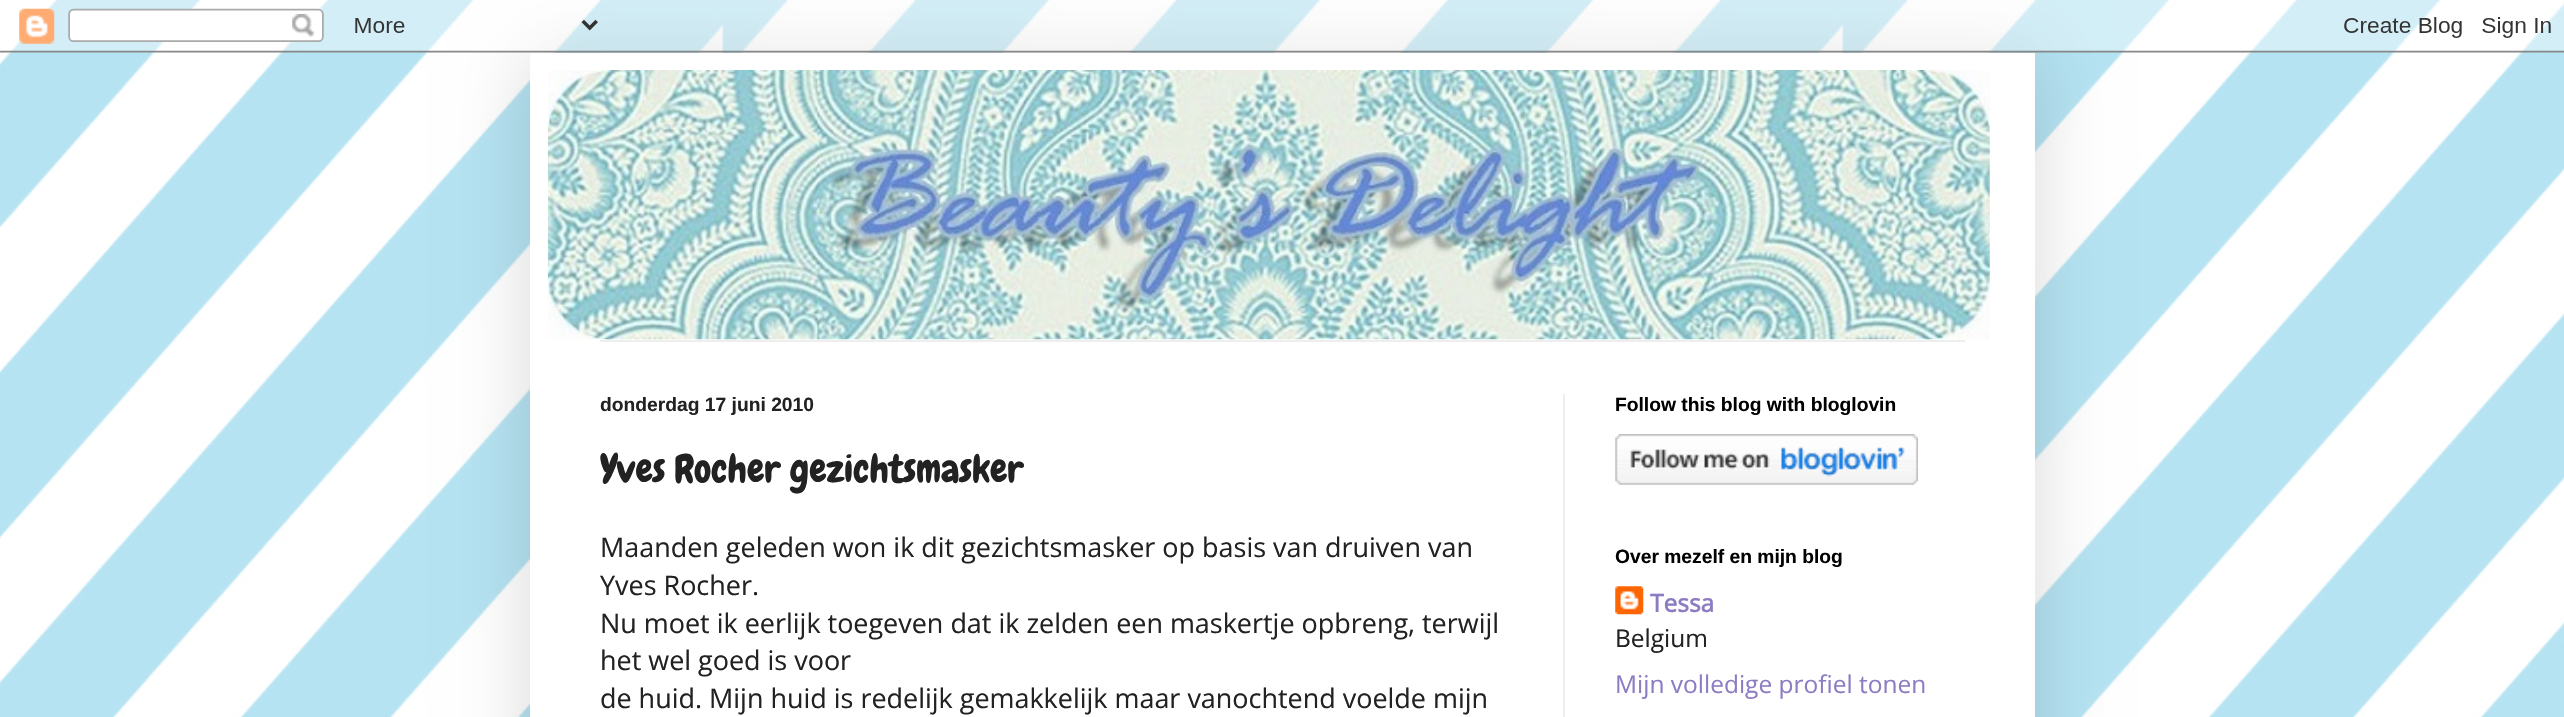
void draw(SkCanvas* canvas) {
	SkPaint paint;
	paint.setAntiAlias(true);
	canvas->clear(0xffffffff);
	canvas->drawImageRect(SkImages::DeferredFromEncodedData(SkData::MakeFromFileName("img1.png")), SkRect::MakeXYWH(0, 0, 2564, 717), SkSamplingOptions());
	paint.setColor(0x26000000);
	paint.setMaskFilter(SkMaskFilter::MakeBlur(kNormal_SkBlurStyle, 35));
	canvas->drawRect(SkRect::MakeXYWH(530, 53, 1505, 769), paint);
	paint.setMaskFilter(nullptr);
	canvas->drawImageRect(SkImages::DeferredFromEncodedData(SkData::MakeFromFileName("img2.png")), SkRect::MakeXYWH(0, 0, 2564, 53), SkSamplingOptions());
	paint.setColor(0xffffffff);
	canvas->drawRect(SkRect::MakeXYWH(530, 53, 1505, 664), paint);
	canvas->drawImageRect(SkImages::DeferredFromEncodedData(SkData::MakeFromFileName("img3.png")), SkRect::MakeXYWH(547, 70, 1443, 270), SkSamplingOptions());
	paint.setColor(0xffeeeeee);
	canvas->drawRect(SkRect::MakeXYWH(600, 340, 1365, 2), paint);
	canvas->drawRect(SkRect::MakeXYWH(1563, 394, 2, 323), paint);
	SkFont f1(fontMgr->matchFamilyStyle("Liberation Sans", SkFontStyle::Bold()), 19.25);
	f1.setSubpixel(true);
	paint.setColor(0xff222222);
	canvas->drawString("donderdag 17 juni 2010", 600, 411, f1, paint);
	SkFont f2(fontMgr->matchFamilyStyle("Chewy", SkFontStyle::Normal()), 38.5);
	f2.setSubpixel(true);
	canvas->drawString("Yves Rocher gezichtsmasker", 600, 482, f2, paint);
	SkFont f3(fontMgr->matchFamilyStyle("Open Sans", SkFontStyle::Normal()), 26.95);
	f3.setSubpixel(true);
	canvas->drawString("Maanden geleden won ik dit gezichtsmasker op basis van druiven van", 600, 557, f3, paint);
	canvas->drawString("Yves Rocher.", 600, 595, f3, paint);
	canvas->drawString("Nu moet ik eerlijk toegeven dat ik zelden een maskertje opbreng, terwijl", 600, 633, f3, paint);
	canvas->drawString("het wel goed is voor", 600, 670, f3, paint);
	canvas->drawString("de huid. Mijn huid is redelijk gemakkelijk maar vanochtend voelde mijn", 600, 708, f3, paint);
	paint.setColor(0xff000000);
	canvas->drawString("Follow this blog with bloglovin", 1615, 411, f1, paint);
	canvas->drawImageRect(SkImages::DeferredFromEncodedData(SkData::MakeFromFileName("img4.png")), SkRect::MakeXYWH(1615, 434, 303, 51), SkSamplingOptions());
	canvas->drawString("Over mezelf en mijn blog", 1615, 563, f1, paint);
	canvas->drawImageRect(SkImages::DeferredFromEncodedData(SkData::MakeFromFileName("img5.png")), SkRect::MakeXYWH(1615, 586, 29, 29), SkSamplingOptions());
	SkFont f4(fontMgr->matchFamilyStyle("Open Sans", SkFontStyle::Bold()), 24.5);
	f4.setSubpixel(true);
	paint.setColor(0xff8e7cc3);
	canvas->drawString("Tessa", 1650, 612, f4, paint);
	SkFont f5(fontMgr->matchFamilyStyle("Open Sans", SkFontStyle::Normal()), 24.5);
	f5.setSubpixel(true);
	paint.setColor(0xff222222);
	canvas->drawString("Belgium", 1615, 647, f5, paint);
	paint.setColor(0xff8e7cc3);
	canvas->drawString("Mijn volledige profiel tonen", 1615, 693, f5, paint);
}
